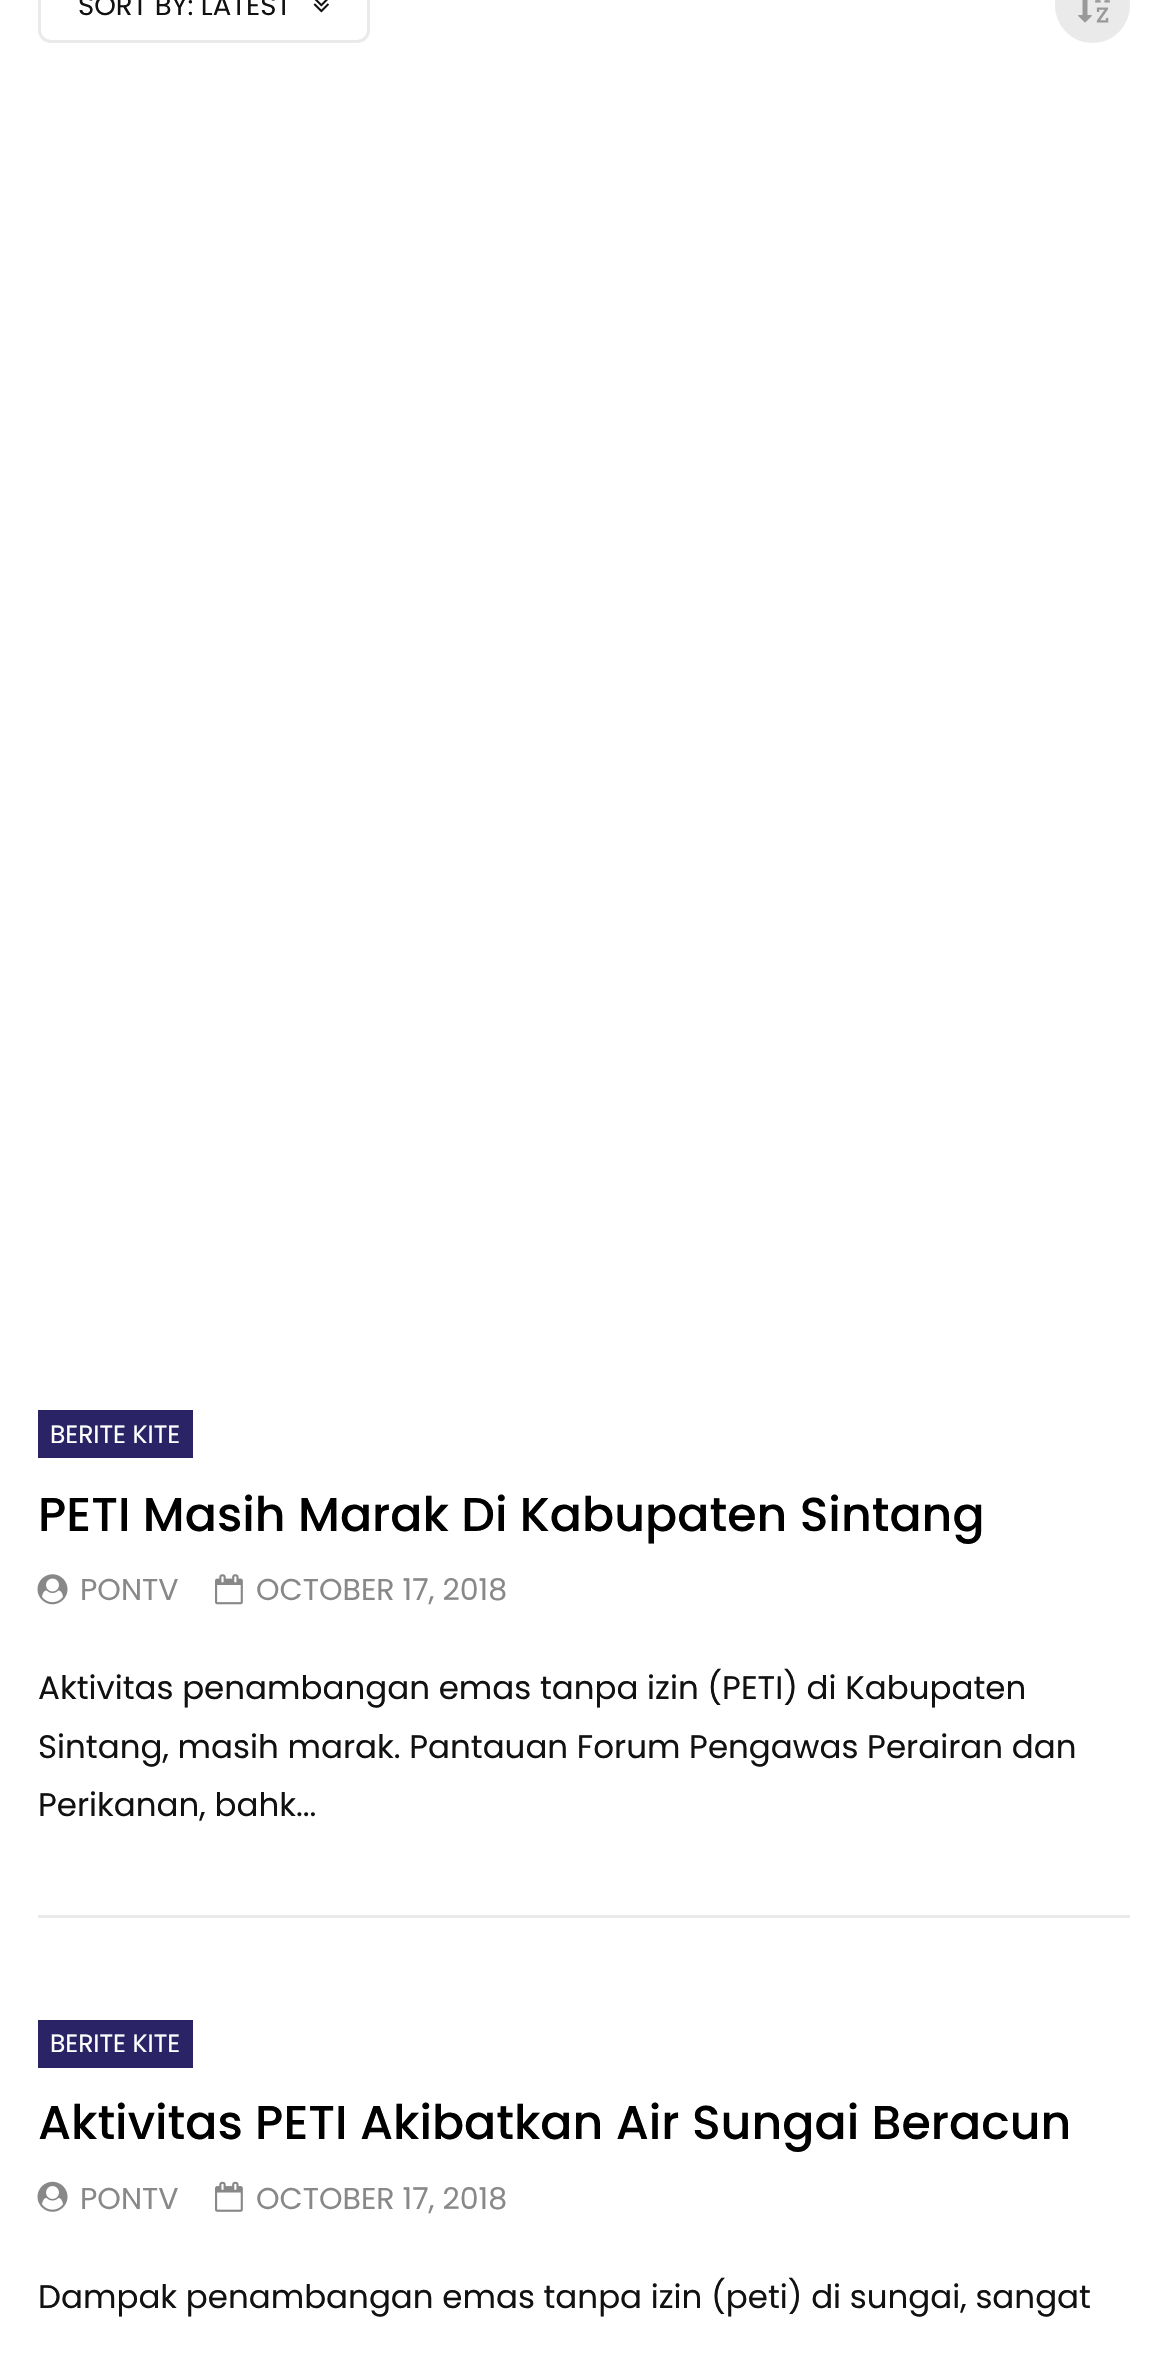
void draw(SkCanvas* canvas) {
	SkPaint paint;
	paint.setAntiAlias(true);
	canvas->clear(0xffffffff);
	paint.setStroke(true);
	paint.setStrokeWidth(3);
	paint.setColor(0xffeaeaea);
	canvas->drawRoundRect(SkRect::MakeXYWH(39.5, -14.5, 329, 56), 11.5, 11.5, paint);
	SkFont f1(fontMgr->matchFamilyStyle("Poppins", SkFontStyle::Normal()), 27.5);
	f1.setSubpixel(true);
	paint.setStroke(false);
	paint.setColor(0xff111111);
	canvas->drawString("SORT BY: LATEST", 78, 15, f1, paint);
	canvas->drawImageRect(SkImages::DeferredFromEncodedData(SkData::MakeFromFileName("img1.png")), SkRect::MakeXYWH(313, 0, 16, 13), SkSamplingOptions());
	paint.setColor(0xffeaeaea);
	canvas->drawCircle(1092.5, 5.5, 37.5, paint);
	canvas->drawImageRect(SkImages::DeferredFromEncodedData(SkData::MakeFromFileName("img2.png")), SkRect::MakeXYWH(1078, 0, 32, 23), SkSamplingOptions());
	canvas->drawRect(SkRect::MakeXYWH(38, 1915, 1092, 3), paint);
	paint.setColor(0xff2a2466);
	canvas->drawRect(SkRect::MakeXYWH(38, 1410, 155, 48), paint);
	SkFont f2(fontMgr->matchFamilyStyle("Poppins", SkFontStyle::Normal()), 25);
	f2.setSubpixel(true);
	paint.setColor(0xffffffff);
	canvas->drawString("BERITE KITE", 50, 1443, f2, paint);
	SkFont f3(fontMgr->matchFamilyStyle("Poppins", SkFontStyle(500, SkFontStyle::kNormal_Width, SkFontStyle::kUpright_Slant)), 47.5);
	f3.setSubpixel(true);
	paint.setColor(0xff000000);
	canvas->drawString("PETI Masih Marak Di Kabupaten Sintang", 38, 1531, f3, paint);
	canvas->drawImageRect(SkImages::DeferredFromEncodedData(SkData::MakeFromFileName("img3.png")), SkRect::MakeXYWH(37, 1574, 31, 31), SkSamplingOptions());
	SkFont f4(fontMgr->matchFamilyStyle("Poppins", SkFontStyle::Normal()), 30);
	f4.setSubpixel(true);
	paint.setColor(0xff888888);
	canvas->drawString("PONTV", 80, 1600, f4, paint);
	canvas->drawImageRect(SkImages::DeferredFromEncodedData(SkData::MakeFromFileName("img4.png")), SkRect::MakeXYWH(215, 1574, 28, 31), SkSamplingOptions());
	canvas->drawString("OCTOBER 17, 2018", 256, 1600, f4, paint);
	SkFont f5(fontMgr->matchFamilyStyle("Poppins", SkFontStyle::Normal()), 32.5);
	f5.setSubpixel(true);
	paint.setColor(0xff111111);
	canvas->drawString("Aktivitas penambangan emas tanpa izin (PETI) di Kabupaten", 38, 1699, f5, paint);
	canvas->drawString("Sintang, masih marak. Pantauan Forum Pengawas Perairan dan", 38, 1758, f5, paint);
	canvas->drawString("Perikanan, bahk...", 38, 1816, f5, paint);
	paint.setColor(0xff2a2466);
	canvas->drawRect(SkRect::MakeXYWH(38, 2020, 155, 48), paint);
	paint.setColor(0xffffffff);
	canvas->drawString("BERITE KITE", 50, 2052, f2, paint);
	paint.setColor(0xff000000);
	canvas->drawString("Aktivitas PETI Akibatkan Air Sungai Beracun", 38, 2139, f3, paint);
	canvas->drawImageRect(SkImages::DeferredFromEncodedData(SkData::MakeFromFileName("img5.png")), SkRect::MakeXYWH(37, 2181, 31, 31), SkSamplingOptions());
	paint.setColor(0xff888888);
	canvas->drawString("PONTV", 80, 2209, f4, paint);
	canvas->drawImageRect(SkImages::DeferredFromEncodedData(SkData::MakeFromFileName("img6.png")), SkRect::MakeXYWH(215, 2181, 28, 31), SkSamplingOptions());
	canvas->drawString("OCTOBER 17, 2018", 256, 2209, f4, paint);
	paint.setColor(0xff111111);
	canvas->drawString("Dampak penambangan emas tanpa izin (peti) di sungai, sangat", 38, 2308, f5, paint);
}
